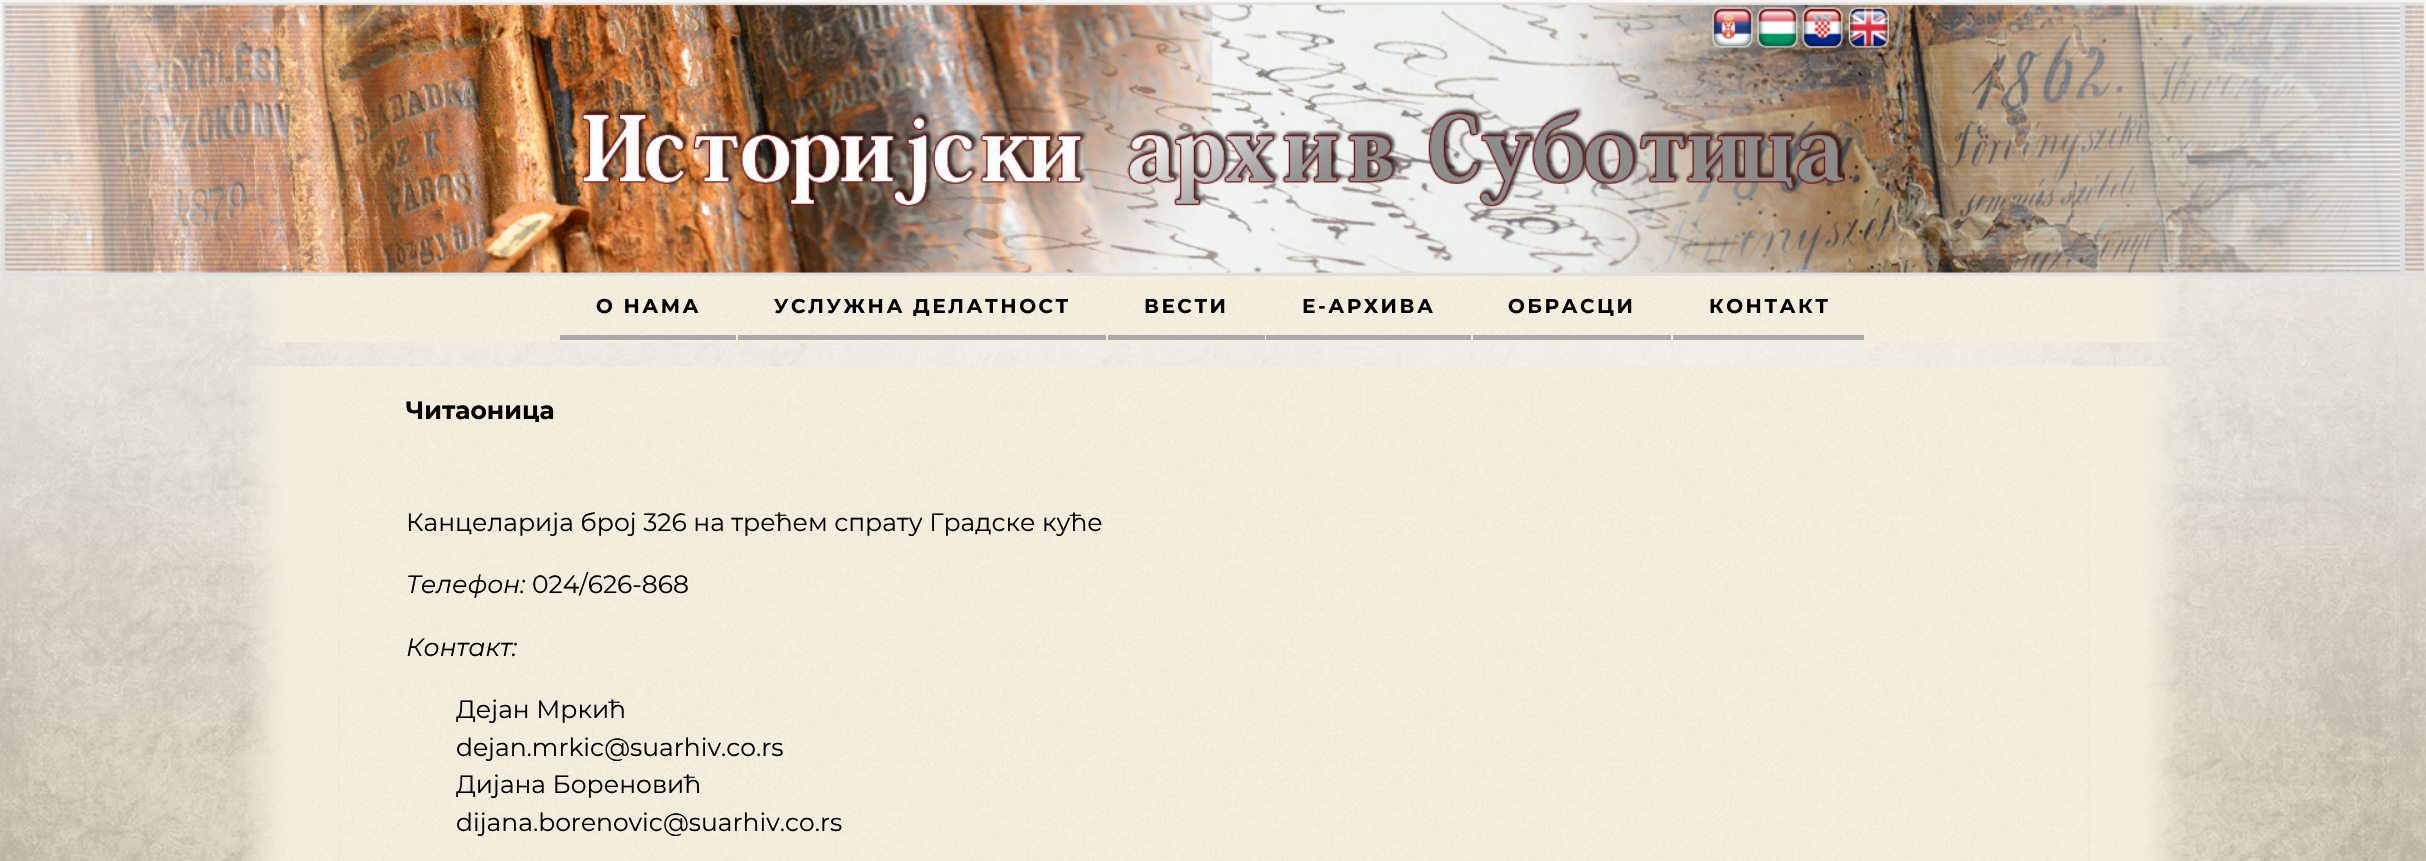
void draw(SkCanvas* canvas) {
	SkPaint paint;
	paint.setAntiAlias(true);
	auto spacedText = [&](const char* s, float x, float y, const SkFont& font, const SkPaint& ink, float letter, float word) {
		std::vector<SkGlyphID> glyphs(font.countText(s, strlen(s), SkTextEncoding::kUTF8));
		std::vector<float> xs(glyphs.size());
		font.textToGlyphs(s, strlen(s), SkTextEncoding::kUTF8, glyphs);
		font.getXPos(glyphs, xs, x);
		float extra = 0;
		for (size_t i = 0; i < glyphs.size(); i++) {
			xs[i] += extra;
			extra += letter + word * (glyphs[i] == font.unicharToGlyph(' '));
		}
		canvas->drawTextBlob(SkTextBlob::MakeFromPosHGlyphs(glyphs, xs, y, font), 0, 0, ink);
	};
	canvas->clear(0xffffffff);
	canvas->drawImageRect(SkImages::DeferredFromEncodedData(SkData::MakeFromFileName("img1.png")), SkRect::MakeXYWH(0, 0, 2426, 861), SkSamplingOptions());
	canvas->drawImageRect(SkImages::DeferredFromEncodedData(SkData::MakeFromFileName("img2.png")), SkRect::MakeXYWH(2, 2, 2422, 275), SkSamplingOptions());
	canvas->drawImageRect(SkImages::DeferredFromEncodedData(SkData::MakeFromFileName("img3.png")), SkRect::MakeXYWH(1712, 7, 41, 41), SkSamplingOptions());
	canvas->drawImageRect(SkImages::DeferredFromEncodedData(SkData::MakeFromFileName("img4.png")), SkRect::MakeXYWH(1757, 7, 41, 41), SkSamplingOptions());
	canvas->drawImageRect(SkImages::DeferredFromEncodedData(SkData::MakeFromFileName("img5.png")), SkRect::MakeXYWH(1802, 7, 41, 41), SkSamplingOptions());
	canvas->drawImageRect(SkImages::DeferredFromEncodedData(SkData::MakeFromFileName("img6.png")), SkRect::MakeXYWH(1848, 7, 41, 41), SkSamplingOptions());
	canvas->drawImageRect(SkImages::DeferredFromEncodedData(SkData::MakeFromFileName("img7.png")), SkRect::MakeXYWH(582, 106, 1263, 101), SkSamplingOptions());
	canvas->drawImageRect(SkImages::DeferredFromEncodedData(SkData::MakeFromFileName("img8.png")), SkRect::MakeXYWH(251, 276, 88, 67), SkSamplingOptions());
	canvas->drawImageRect(SkImages::DeferredFromEncodedData(SkData::MakeFromFileName("img9.png")), SkRect::MakeXYWH(339, 276, 1750, 67), SkSamplingOptions());
	paint.setColor(0xffaaaaaa);
	canvas->drawRect(SkRect::MakeXYWH(560, 335, 176, 5), paint);
	SkFont f1(fontMgr->matchFamilyStyle("Montserrat", SkFontStyle::Bold()), 20);
	f1.setSubpixel(true);
	paint.setColor(0xff000000);
	spacedText("О НАМА", 596, 313, f1, paint, 2.5, 0);
	paint.setColor(0xffaaaaaa);
	canvas->drawRect(SkRect::MakeXYWH(738, 335, 368, 5), paint);
	paint.setColor(0xff000000);
	spacedText("УСЛУЖНА ДЕЛАТНОСТ", 774, 313, f1, paint, 2.5, 0);
	paint.setColor(0xffaaaaaa);
	canvas->drawRect(SkRect::MakeXYWH(1108, 335, 157, 5), paint);
	paint.setColor(0xff000000);
	spacedText("ВЕСТИ", 1144, 313, f1, paint, 2.5, 0);
	paint.setColor(0xffaaaaaa);
	canvas->drawRect(SkRect::MakeXYWH(1266, 335, 205, 5), paint);
	paint.setColor(0xff000000);
	spacedText("Е-АРХИВА", 1302, 313, f1, paint, 2.5, 0);
	paint.setColor(0xffaaaaaa);
	canvas->drawRect(SkRect::MakeXYWH(1473, 335, 198, 5), paint);
	paint.setColor(0xff000000);
	spacedText("ОБРАСЦИ", 1508, 313, f1, paint, 2.5, 0);
	paint.setColor(0xffaaaaaa);
	canvas->drawRect(SkRect::MakeXYWH(1673, 335, 191, 5), paint);
	paint.setColor(0xff000000);
	spacedText("КОНТАКТ", 1709, 313, f1, paint, 2.5, 0);
	canvas->drawImageRect(SkImages::DeferredFromEncodedData(SkData::MakeFromFileName("img10.png")), SkRect::MakeXYWH(2089, 276, 88, 67), SkSamplingOptions());
	canvas->drawImageRect(SkImages::DeferredFromEncodedData(SkData::MakeFromFileName("img11.png")), SkRect::MakeXYWH(244, 366, 95, 495), SkSamplingOptions());
	canvas->drawImageRect(SkImages::DeferredFromEncodedData(SkData::MakeFromFileName("img12.png")), SkRect::MakeXYWH(339, 366, 1750, 495), SkSamplingOptions());
	SkFont f2(fontMgr->matchFamilyStyle("Montserrat", SkFontStyle::Bold()), 25);
	f2.setSubpixel(true);
	canvas->drawString("Читаоница", 406, 419, f2, paint);
	SkFont f3(fontMgr->matchFamilyStyle("Montserrat", SkFontStyle::Normal()), 25);
	f3.setSubpixel(true);
	canvas->drawString("Канцеларија број 326 на трећем спрату Градске куће", 406, 531, f3, paint);
	SkFont f4(fontMgr->matchFamilyStyle("Montserrat", SkFontStyle::Italic()), 25);
	f4.setSubpixel(true);
	canvas->drawString("Телефон:", 406, 593, f4, paint);
	canvas->drawString("024/626-868", 532, 593, f3, paint);
	canvas->drawString("Контакт:", 406, 656, f4, paint);
	canvas->drawString("Дејан Мркић", 456, 718, f3, paint);
	canvas->drawString("dejan.mrkic@suarhiv.co.rs", 456, 756, f3, paint);
	canvas->drawString("Дијана Бореновић", 456, 793, f3, paint);
	canvas->drawString("dijana.borenovic@suarhiv.co.rs", 456, 831, f3, paint);
	canvas->drawImageRect(SkImages::DeferredFromEncodedData(SkData::MakeFromFileName("img13.png")), SkRect::MakeXYWH(2089, 366, 96, 495), SkSamplingOptions());
}
